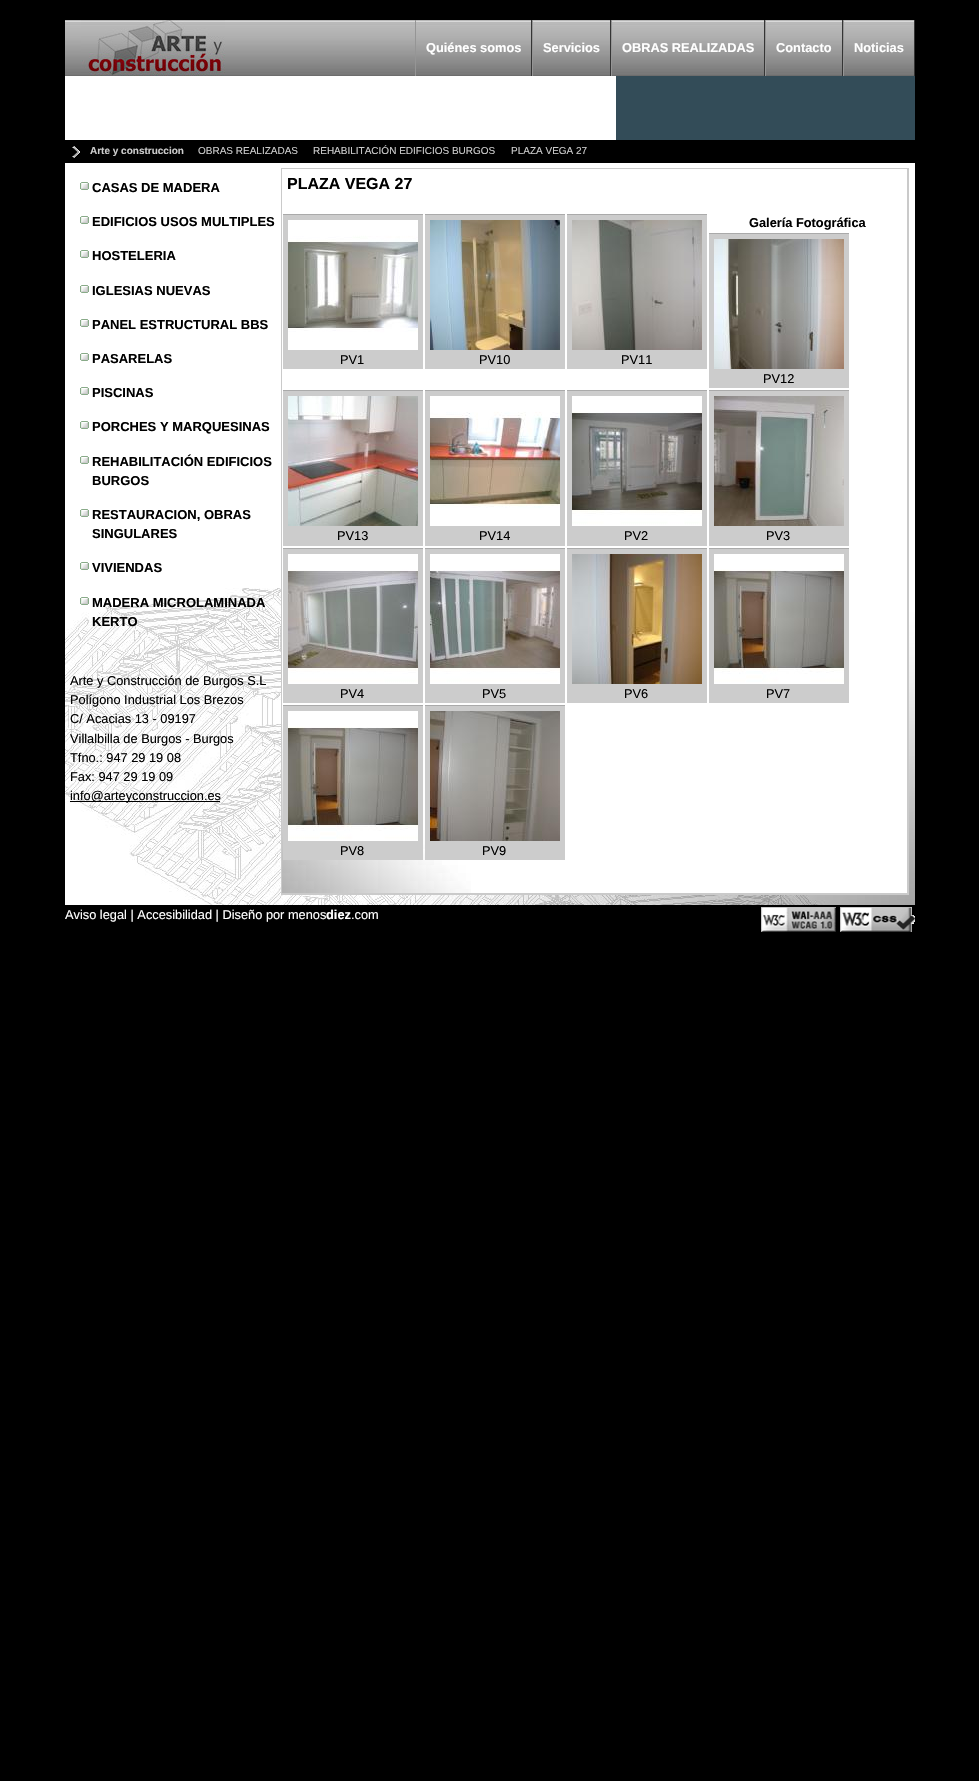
void draw(SkCanvas* canvas) {
	SkPaint paint;
	paint.setAntiAlias(true);
	canvas->clear(0xff000000);
	paint.setColor(0xffffffff);
	canvas->drawRect(SkRect::MakeXYWH(65, 76, 850, 512), paint);
	canvas->drawImageRect(SkImages::DeferredFromEncodedData(SkData::MakeFromFileName("img1.png")), SkRect::MakeXYWH(65, 588, 850, 317), SkSamplingOptions());
	paint.setColor(0xffb7b7b7);
	canvas->drawRect(SkRect::MakeXYWH(65, 20, 849, 1), paint);
	canvas->drawImageRect(SkImages::DeferredFromEncodedData(SkData::MakeFromFileName("img2.png")), SkRect::MakeXYWH(65, 21, 849, 55), SkSamplingOptions());
	canvas->drawImageRect(SkImages::DeferredFromEncodedData(SkData::MakeFromFileName("img3.png")), SkRect::MakeXYWH(81, 20, 144, 56), SkSamplingOptions());
	paint.setColor(0xff353535);
	canvas->drawRect(SkRect::MakeXYWH(531, 20, 1, 56), paint);
	paint.setColor(0xff959595);
	canvas->drawRect(SkRect::MakeXYWH(415, 20, 1, 56), paint);
	SkFont f1(fontMgr->matchFamilyStyle("Liberation Sans", SkFontStyle::Bold()), 12.8);
	f1.setSubpixel(true);
	paint.setColor(0xffffffff);
	canvas->drawString("Quiénes somos", 426, 52, f1, paint);
	paint.setColor(0xff353535);
	canvas->drawRect(SkRect::MakeXYWH(610, 20, 1, 56), paint);
	paint.setColor(0xff959595);
	canvas->drawRect(SkRect::MakeXYWH(532, 20, 1, 56), paint);
	paint.setColor(0xffffffff);
	canvas->drawString("Servicios", 543, 52, f1, paint);
	paint.setColor(0xff353535);
	canvas->drawRect(SkRect::MakeXYWH(764, 20, 1, 56), paint);
	paint.setColor(0xff959595);
	canvas->drawRect(SkRect::MakeXYWH(611, 20, 1, 56), paint);
	paint.setColor(0xffffffff);
	canvas->drawString("OBRAS REALIZADAS", 622, 52, f1, paint);
	paint.setColor(0xff353535);
	canvas->drawRect(SkRect::MakeXYWH(842, 20, 1, 56), paint);
	paint.setColor(0xff959595);
	canvas->drawRect(SkRect::MakeXYWH(765, 20, 1, 56), paint);
	paint.setColor(0xffffffff);
	canvas->drawString("Contacto", 776, 52, f1, paint);
	paint.setColor(0xff353535);
	canvas->drawRect(SkRect::MakeXYWH(914, 20, 1, 56), paint);
	paint.setColor(0xff959595);
	canvas->drawRect(SkRect::MakeXYWH(843, 20, 1, 56), paint);
	paint.setColor(0xffffffff);
	canvas->drawString("Noticias", 854, 52, f1, paint);
	paint.setColor(0xff334c58);
	canvas->drawRect(SkRect::MakeXYWH(616, 76, 299, 64), paint);
	paint.setColor(0xff000000);
	canvas->drawRect(SkRect::MakeXYWH(65, 140, 850, 23), paint);
	canvas->drawImageRect(SkImages::DeferredFromEncodedData(SkData::MakeFromFileName("img4.png")), SkRect::MakeXYWH(72, 146, 8, 12), SkSamplingOptions());
	SkFont f2(fontMgr->matchFamilyStyle("Liberation Sans", SkFontStyle::Bold()), 10);
	f2.setSubpixel(true);
	paint.setColor(0xffcccccc);
	canvas->drawString("Arte y construccion", 90, 154, f2, paint);
	SkFont f3(fontMgr->matchFamilyStyle("Liberation Sans", SkFontStyle::Normal()), 10);
	f3.setSubpixel(true);
	canvas->drawString("OBRAS REALIZADAS", 198, 154, f3, paint);
	canvas->drawString("REHABILITACIÓN EDIFICIOS BURGOS", 313, 154, f3, paint);
	canvas->drawString("PLAZA VEGA 27", 511, 154, f3, paint);
	canvas->drawImageRect(SkImages::DeferredFromEncodedData(SkData::MakeFromFileName("img5.png")), SkRect::MakeXYWH(80, 182, 9, 8), SkSamplingOptions());
	SkFont f4(fontMgr->matchFamilyStyle("Liberation Sans", SkFontStyle::Bold()), 13);
	f4.setSubpixel(true);
	paint.setColor(0xff000000);
	canvas->drawString("CASAS DE MADERA", 92, 192, f4, paint);
	canvas->drawImageRect(SkImages::DeferredFromEncodedData(SkData::MakeFromFileName("img5.png")), SkRect::MakeXYWH(80, 216, 9, 8), SkSamplingOptions());
	canvas->drawString("EDIFICIOS USOS MULTIPLES", 92, 226, f4, paint);
	canvas->drawImageRect(SkImages::DeferredFromEncodedData(SkData::MakeFromFileName("img5.png")), SkRect::MakeXYWH(80, 250, 9, 8), SkSamplingOptions());
	canvas->drawString("HOSTELERIA", 92, 260, f4, paint);
	canvas->drawImageRect(SkImages::DeferredFromEncodedData(SkData::MakeFromFileName("img5.png")), SkRect::MakeXYWH(80, 285, 9, 8), SkSamplingOptions());
	canvas->drawString("IGLESIAS NUEVAS", 92, 295, f4, paint);
	canvas->drawImageRect(SkImages::DeferredFromEncodedData(SkData::MakeFromFileName("img5.png")), SkRect::MakeXYWH(80, 319, 9, 8), SkSamplingOptions());
	canvas->drawString("PANEL ESTRUCTURAL BBS", 92, 329, f4, paint);
	canvas->drawImageRect(SkImages::DeferredFromEncodedData(SkData::MakeFromFileName("img5.png")), SkRect::MakeXYWH(80, 353, 9, 8), SkSamplingOptions());
	canvas->drawString("PASARELAS", 92, 363, f4, paint);
	canvas->drawImageRect(SkImages::DeferredFromEncodedData(SkData::MakeFromFileName("img5.png")), SkRect::MakeXYWH(80, 387, 9, 8), SkSamplingOptions());
	canvas->drawString("PISCINAS", 92, 397, f4, paint);
	canvas->drawImageRect(SkImages::DeferredFromEncodedData(SkData::MakeFromFileName("img5.png")), SkRect::MakeXYWH(80, 421, 9, 8), SkSamplingOptions());
	canvas->drawString("PORCHES Y MARQUESINAS", 92, 431, f4, paint);
	canvas->drawImageRect(SkImages::DeferredFromEncodedData(SkData::MakeFromFileName("img5.png")), SkRect::MakeXYWH(80, 456, 9, 8), SkSamplingOptions());
	canvas->drawString("REHABILITACIÓN EDIFICIOS", 92, 466, f4, paint);
	canvas->drawString("BURGOS", 92, 485, f4, paint);
	canvas->drawImageRect(SkImages::DeferredFromEncodedData(SkData::MakeFromFileName("img5.png")), SkRect::MakeXYWH(80, 509, 9, 8), SkSamplingOptions());
	canvas->drawString("RESTAURACION, OBRAS", 92, 519, f4, paint);
	canvas->drawString("SINGULARES", 92, 538, f4, paint);
	canvas->drawImageRect(SkImages::DeferredFromEncodedData(SkData::MakeFromFileName("img5.png")), SkRect::MakeXYWH(80, 562, 9, 8), SkSamplingOptions());
	canvas->drawString("VIVIENDAS", 92, 572, f4, paint);
	canvas->drawImageRect(SkImages::DeferredFromEncodedData(SkData::MakeFromFileName("img5.png")), SkRect::MakeXYWH(80, 597, 9, 8), SkSamplingOptions());
	canvas->drawString("MADERA MICROLAMINADA", 92, 607, f4, paint);
	canvas->drawString("KERTO", 92, 626, f4, paint);
	SkFont f5(fontMgr->matchFamilyStyle("Liberation Sans", SkFontStyle::Normal()), 12.8);
	f5.setSubpixel(true);
	canvas->drawString("Arte y Construcción de Burgos S.L", 70, 685, f5, paint);
	canvas->drawString("Polígono Industrial Los Brezos", 70, 704, f5, paint);
	canvas->drawString("C/ Acacias 13 - 09197", 70, 723, f5, paint);
	canvas->drawString("Villalbilla de Burgos - Burgos", 70, 743, f5, paint);
	canvas->drawString("Tfno.: 947 29 19 08", 70, 762, f5, paint);
	canvas->drawString("Fax: 947 29 19 09", 70, 781, f5, paint);
	canvas->drawRect(SkRect::MakeXYWH(70, 801, 150, 1), paint);
	canvas->drawString("info@arteyconstruccion.es", 70, 800, f5, paint);
	paint.setColor(0xffffffff);
	canvas->drawRect(SkRect::MakeXYWH(282, 596, 625, 297), paint);
	canvas->drawImageRect(SkImages::DeferredFromEncodedData(SkData::MakeFromFileName("img6.png")), SkRect::MakeXYWH(282, 724, 189, 169), SkSamplingOptions());
	paint.setColor(0xffcacaca);
	canvas->drawRect(SkRect::MakeXYWH(281, 168, 628, 1), paint);
	canvas->drawRect(SkRect::MakeXYWH(907, 168, 2, 727), paint);
	canvas->drawRect(SkRect::MakeXYWH(281, 893, 628, 2), paint);
	canvas->drawRect(SkRect::MakeXYWH(281, 168, 1, 727), paint);
	SkFont f6(fontMgr->matchFamilyStyle("Liberation Sans", SkFontStyle::Bold()), 16);
	f6.setSubpixel(true);
	paint.setColor(0xff000000);
	canvas->drawString("PLAZA VEGA 27", 287, 189, f6, paint);
	canvas->drawString("Galería Fotográfica", 749, 227, f1, paint);
	paint.setColor(0xffcccccc);
	canvas->drawRect(SkRect::MakeXYWH(283, 215, 140, 154), paint);
	paint.setColor(0xffaaaaaa);
	canvas->drawRect(SkRect::MakeXYWH(283, 214, 140, 1), paint);
	canvas->drawImageRect(SkImages::DeferredFromEncodedData(SkData::MakeFromFileName("img7.png")), SkRect::MakeXYWH(288, 220, 130, 130), SkSamplingOptions());
	paint.setColor(0xff000000);
	canvas->drawString("PV1", 340, 364, f5, paint);
	paint.setColor(0xffcccccc);
	canvas->drawRect(SkRect::MakeXYWH(425, 215, 140, 154), paint);
	paint.setColor(0xffaaaaaa);
	canvas->drawRect(SkRect::MakeXYWH(425, 214, 140, 1), paint);
	canvas->drawImageRect(SkImages::DeferredFromEncodedData(SkData::MakeFromFileName("img8.png")), SkRect::MakeXYWH(430, 220, 130, 130), SkSamplingOptions());
	paint.setColor(0xff000000);
	canvas->drawString("PV10", 479, 364, f5, paint);
	paint.setColor(0xffcccccc);
	canvas->drawRect(SkRect::MakeXYWH(567, 215, 140, 154), paint);
	paint.setColor(0xffaaaaaa);
	canvas->drawRect(SkRect::MakeXYWH(567, 214, 140, 1), paint);
	canvas->drawImageRect(SkImages::DeferredFromEncodedData(SkData::MakeFromFileName("img9.png")), SkRect::MakeXYWH(572, 220, 130, 130), SkSamplingOptions());
	paint.setColor(0xff000000);
	canvas->drawString("PV11", 621, 364, f5, paint);
	paint.setColor(0xffcccccc);
	canvas->drawRect(SkRect::MakeXYWH(709, 234, 140, 154), paint);
	paint.setColor(0xffaaaaaa);
	canvas->drawRect(SkRect::MakeXYWH(709, 233, 140, 1), paint);
	canvas->drawImageRect(SkImages::DeferredFromEncodedData(SkData::MakeFromFileName("img10.png")), SkRect::MakeXYWH(714, 239, 130, 130), SkSamplingOptions());
	paint.setColor(0xff000000);
	canvas->drawString("PV12", 763, 383, f5, paint);
	paint.setColor(0xffcccccc);
	canvas->drawRect(SkRect::MakeXYWH(283, 391, 140, 155), paint);
	paint.setColor(0xffaaaaaa);
	canvas->drawRect(SkRect::MakeXYWH(283, 390, 140, 1), paint);
	canvas->drawImageRect(SkImages::DeferredFromEncodedData(SkData::MakeFromFileName("img11.png")), SkRect::MakeXYWH(288, 396, 130, 130), SkSamplingOptions());
	paint.setColor(0xff000000);
	canvas->drawString("PV13", 337, 540, f5, paint);
	paint.setColor(0xffcccccc);
	canvas->drawRect(SkRect::MakeXYWH(425, 391, 140, 155), paint);
	paint.setColor(0xffaaaaaa);
	canvas->drawRect(SkRect::MakeXYWH(425, 390, 140, 1), paint);
	canvas->drawImageRect(SkImages::DeferredFromEncodedData(SkData::MakeFromFileName("img12.png")), SkRect::MakeXYWH(430, 396, 130, 130), SkSamplingOptions());
	paint.setColor(0xff000000);
	canvas->drawString("PV14", 479, 540, f5, paint);
	paint.setColor(0xffcccccc);
	canvas->drawRect(SkRect::MakeXYWH(567, 391, 140, 155), paint);
	paint.setColor(0xffaaaaaa);
	canvas->drawRect(SkRect::MakeXYWH(567, 390, 140, 1), paint);
	canvas->drawImageRect(SkImages::DeferredFromEncodedData(SkData::MakeFromFileName("img13.png")), SkRect::MakeXYWH(572, 396, 130, 130), SkSamplingOptions());
	paint.setColor(0xff000000);
	canvas->drawString("PV2", 624, 540, f5, paint);
	paint.setColor(0xffcccccc);
	canvas->drawRect(SkRect::MakeXYWH(709, 391, 140, 155), paint);
	paint.setColor(0xffaaaaaa);
	canvas->drawRect(SkRect::MakeXYWH(709, 390, 140, 1), paint);
	canvas->drawImageRect(SkImages::DeferredFromEncodedData(SkData::MakeFromFileName("img14.png")), SkRect::MakeXYWH(714, 396, 130, 130), SkSamplingOptions());
	paint.setColor(0xff000000);
	canvas->drawString("PV3", 766, 540, f5, paint);
	paint.setColor(0xffcccccc);
	canvas->drawRect(SkRect::MakeXYWH(283, 549, 140, 154), paint);
	paint.setColor(0xffaaaaaa);
	canvas->drawRect(SkRect::MakeXYWH(283, 548, 140, 1), paint);
	canvas->drawImageRect(SkImages::DeferredFromEncodedData(SkData::MakeFromFileName("img15.png")), SkRect::MakeXYWH(288, 554, 130, 130), SkSamplingOptions());
	paint.setColor(0xff000000);
	canvas->drawString("PV4", 340, 698, f5, paint);
	paint.setColor(0xffcccccc);
	canvas->drawRect(SkRect::MakeXYWH(425, 549, 140, 154), paint);
	paint.setColor(0xffaaaaaa);
	canvas->drawRect(SkRect::MakeXYWH(425, 548, 140, 1), paint);
	canvas->drawImageRect(SkImages::DeferredFromEncodedData(SkData::MakeFromFileName("img16.png")), SkRect::MakeXYWH(430, 554, 130, 130), SkSamplingOptions());
	paint.setColor(0xff000000);
	canvas->drawString("PV5", 482, 698, f5, paint);
	paint.setColor(0xffcccccc);
	canvas->drawRect(SkRect::MakeXYWH(567, 549, 140, 154), paint);
	paint.setColor(0xffaaaaaa);
	canvas->drawRect(SkRect::MakeXYWH(567, 548, 140, 1), paint);
	canvas->drawImageRect(SkImages::DeferredFromEncodedData(SkData::MakeFromFileName("img17.png")), SkRect::MakeXYWH(572, 554, 130, 130), SkSamplingOptions());
	paint.setColor(0xff000000);
	canvas->drawString("PV6", 624, 698, f5, paint);
	paint.setColor(0xffcccccc);
	canvas->drawRect(SkRect::MakeXYWH(709, 549, 140, 154), paint);
	paint.setColor(0xffaaaaaa);
	canvas->drawRect(SkRect::MakeXYWH(709, 548, 140, 1), paint);
	canvas->drawImageRect(SkImages::DeferredFromEncodedData(SkData::MakeFromFileName("img18.png")), SkRect::MakeXYWH(714, 554, 130, 130), SkSamplingOptions());
	paint.setColor(0xff000000);
	canvas->drawString("PV7", 766, 698, f5, paint);
	paint.setColor(0xffcccccc);
	canvas->drawRect(SkRect::MakeXYWH(283, 706, 140, 154), paint);
	paint.setColor(0xffaaaaaa);
	canvas->drawRect(SkRect::MakeXYWH(283, 705, 140, 1), paint);
	canvas->drawImageRect(SkImages::DeferredFromEncodedData(SkData::MakeFromFileName("img18.png")), SkRect::MakeXYWH(288, 711, 130, 130), SkSamplingOptions());
	paint.setColor(0xff000000);
	canvas->drawString("PV8", 340, 855, f5, paint);
	paint.setColor(0xffcccccc);
	canvas->drawRect(SkRect::MakeXYWH(425, 706, 140, 154), paint);
	paint.setColor(0xffaaaaaa);
	canvas->drawRect(SkRect::MakeXYWH(425, 705, 140, 1), paint);
	canvas->drawImageRect(SkImages::DeferredFromEncodedData(SkData::MakeFromFileName("img19.png")), SkRect::MakeXYWH(430, 711, 130, 130), SkSamplingOptions());
	paint.setColor(0xff000000);
	canvas->drawString("PV9", 482, 855, f5, paint);
	paint.setColor(0xffffffff);
	canvas->drawString("Aviso legal | Accesibilidad | Diseño por menos", 65, 919, f5, paint);
	canvas->drawString("diez", 326, 919, f1, paint);
	canvas->drawString(".com", 351, 919, f5, paint);
	canvas->drawImageRect(SkImages::DeferredFromEncodedData(SkData::MakeFromFileName("img20.png")), SkRect::MakeXYWH(761, 907, 75, 25), SkSamplingOptions());
	canvas->drawImageRect(SkImages::DeferredFromEncodedData(SkData::MakeFromFileName("img21.png")), SkRect::MakeXYWH(840, 907, 75, 25), SkSamplingOptions());
}
